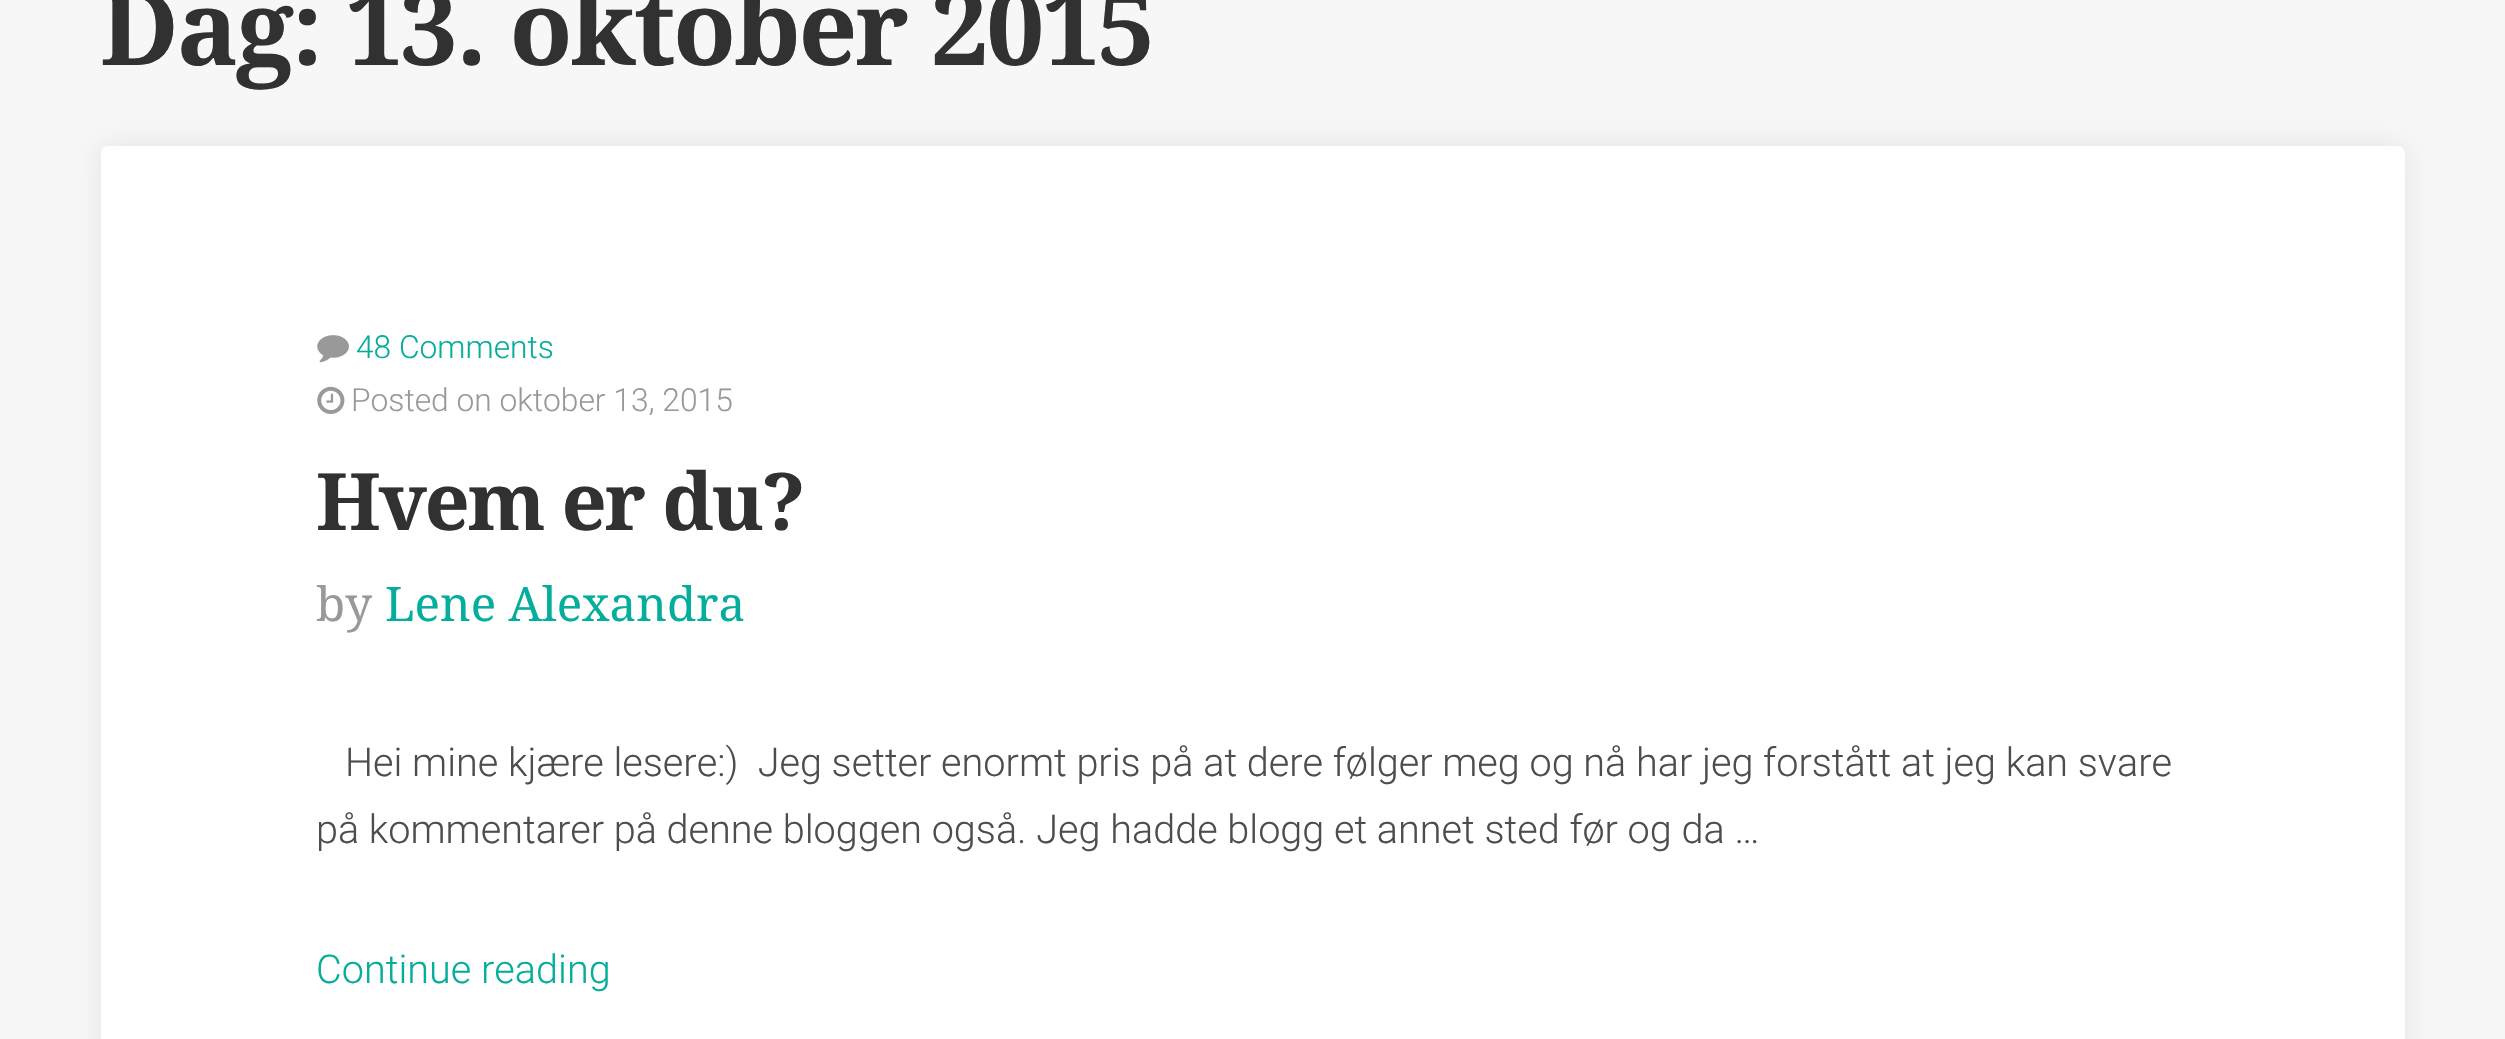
void draw(SkCanvas* canvas) {
	SkPaint paint;
	paint.setAntiAlias(true);
	auto spacedText = [&](const char* s, float x, float y, const SkFont& font, const SkPaint& ink, float letter, float word) {
		std::vector<SkGlyphID> glyphs(font.countText(s, strlen(s), SkTextEncoding::kUTF8));
		std::vector<float> xs(glyphs.size());
		font.textToGlyphs(s, strlen(s), SkTextEncoding::kUTF8, glyphs);
		font.getXPos(glyphs, xs, x);
		float extra = 0;
		for (size_t i = 0; i < glyphs.size(); i++) {
			xs[i] += extra;
			extra += letter + word * (glyphs[i] == font.unicharToGlyph(' '));
		}
		canvas->drawTextBlob(SkTextBlob::MakeFromPosHGlyphs(glyphs, xs, y, font), 0, 0, ink);
	};
	canvas->clear(0xfff7f7f7);
	SkFont f1(fontMgr->matchFamilyStyle("Droid Serif", SkFontStyle::Bold()), 103);
	f1.setSubpixel(true);
	paint.setColor(0xff313131);
	spacedText("Dag: 13. oktober 2015", 100, 65, f1, paint, -2.25, 0);
	paint.setColor(0x14000000);
	paint.setMaskFilter(SkMaskFilter::MakeBlur(kNormal_SkBlurStyle, 13.5));
	canvas->drawRoundRect(SkRect::MakeXYWH(101, 146, 2304, 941), 7, 7, paint);
	paint.setMaskFilter(nullptr);
	paint.setColor(0xffffffff);
	canvas->drawRoundRect(SkRect::MakeXYWH(101, 146, 2304, 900), 7, 7, paint);
	canvas->drawImageRect(SkImages::DeferredFromEncodedData(SkData::MakeFromFileName("img1.png")), SkRect::MakeXYWH(317, 335, 32, 28), SkSamplingOptions());
	SkFont f2(fontMgr->matchFamilyStyle("Roboto", SkFontStyle(300, SkFontStyle::kNormal_Width, SkFontStyle::kUpright_Slant)), 31.75);
	f2.setSubpixel(true);
	paint.setColor(0xff05ad9c);
	canvas->drawString("48 Comments", 356, 358, f2, paint);
	canvas->drawImageRect(SkImages::DeferredFromEncodedData(SkData::MakeFromFileName("img2.png")), SkRect::MakeXYWH(317, 386, 28, 28), SkSamplingOptions());
	paint.setColor(0xff999999);
	canvas->drawString("Posted on oktober 13, 2015", 351, 411, f2, paint);
	SkFont f3(fontMgr->matchFamilyStyle("Droid Serif", SkFontStyle::Bold()), 79.25);
	f3.setSubpixel(true);
	paint.setColor(0xff313131);
	spacedText("Hvem er du?", 316, 530, f3, paint, -2.25, 0);
	SkFont f4(fontMgr->matchFamilyStyle("Droid Serif", SkFontStyle::Normal()), 47.5);
	f4.setSubpixel(true);
	paint.setColor(0xff999999);
	canvas->drawString("by", 316, 621, f4, paint);
	paint.setColor(0xff05ad9c);
	canvas->drawString("Lene Alexandra", 385, 621, f4, paint);
	SkFont f5(fontMgr->matchFamilyStyle("Roboto", SkFontStyle(300, SkFontStyle::kNormal_Width, SkFontStyle::kUpright_Slant)), 39.6);
	f5.setSubpixel(true);
	paint.setColor(0xff4d4d4d);
	canvas->drawString("Hei mine kjære lesere:)  Jeg setter enormt pris på at dere følger meg og nå har jeg forstått at jeg kan svare", 345, 776, f5, paint);
	canvas->drawString("på kommentarer på denne bloggen også. Jeg hadde blogg et annet sted før og da …", 316, 843, f5, paint);
	paint.setColor(0xff05ad9c);
	canvas->drawString("Continue reading", 316, 983, f5, paint);
}
